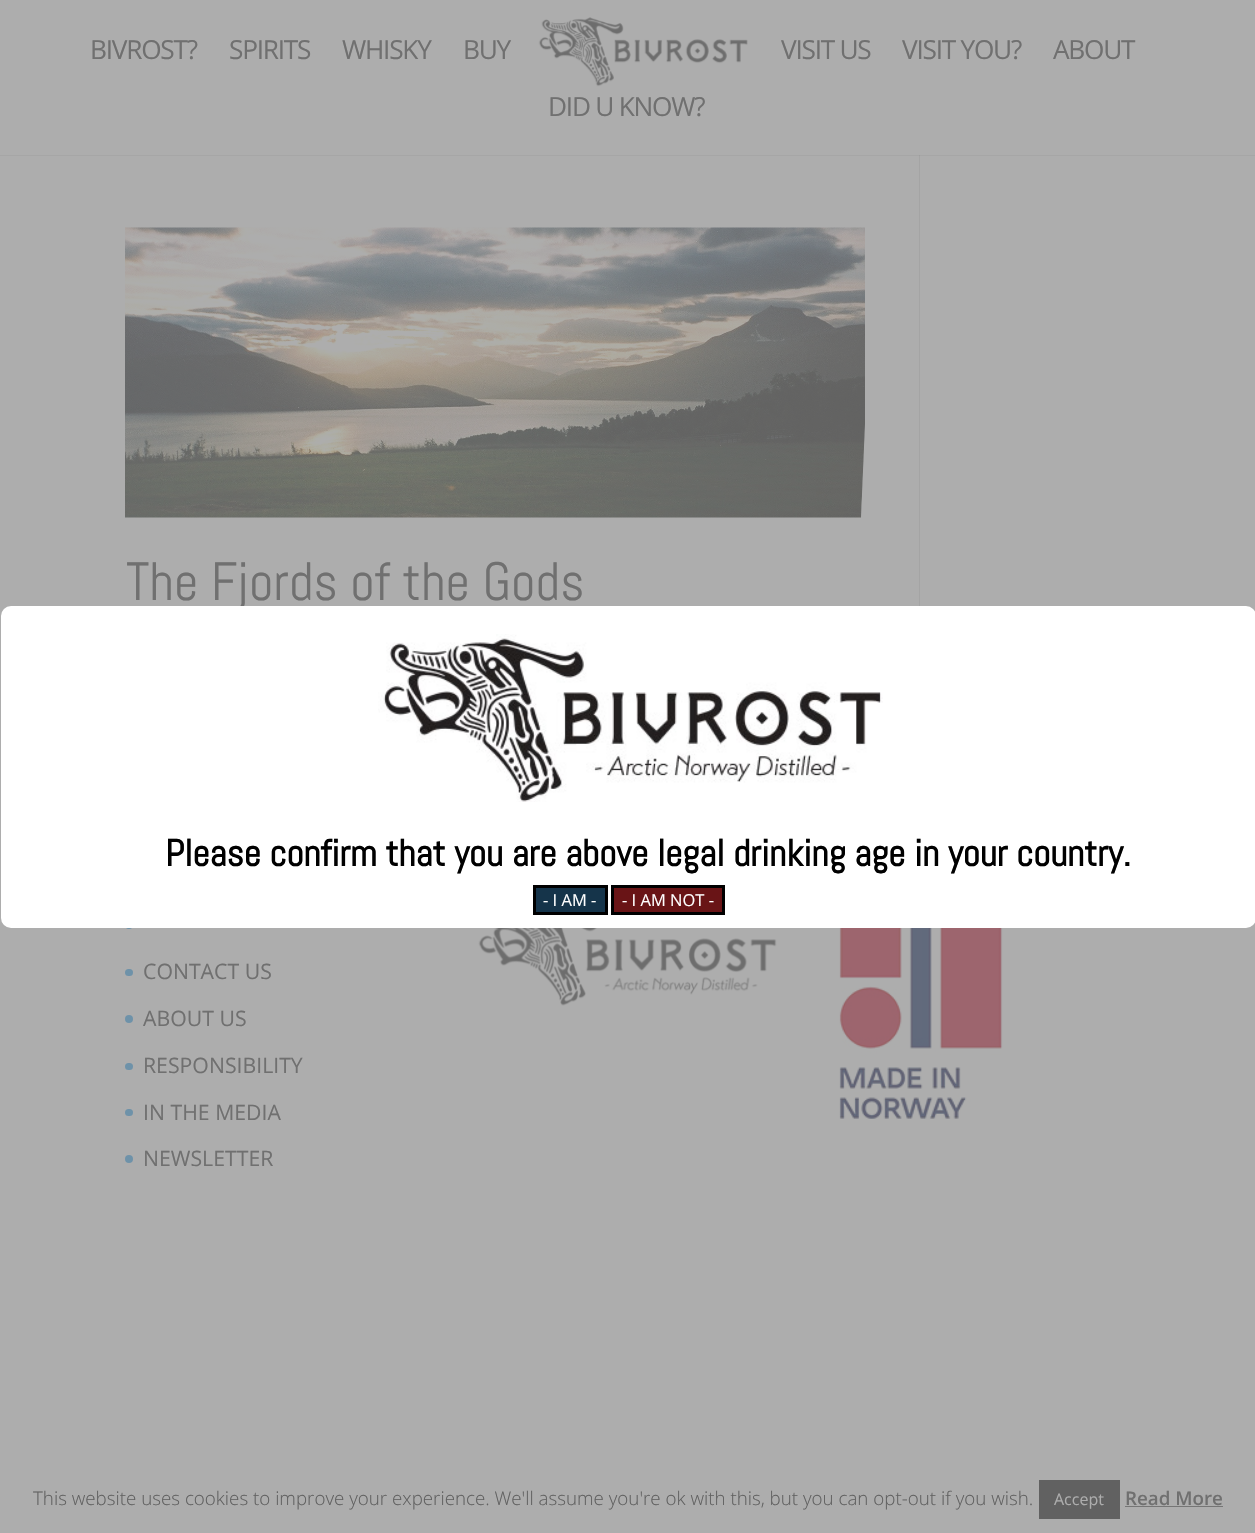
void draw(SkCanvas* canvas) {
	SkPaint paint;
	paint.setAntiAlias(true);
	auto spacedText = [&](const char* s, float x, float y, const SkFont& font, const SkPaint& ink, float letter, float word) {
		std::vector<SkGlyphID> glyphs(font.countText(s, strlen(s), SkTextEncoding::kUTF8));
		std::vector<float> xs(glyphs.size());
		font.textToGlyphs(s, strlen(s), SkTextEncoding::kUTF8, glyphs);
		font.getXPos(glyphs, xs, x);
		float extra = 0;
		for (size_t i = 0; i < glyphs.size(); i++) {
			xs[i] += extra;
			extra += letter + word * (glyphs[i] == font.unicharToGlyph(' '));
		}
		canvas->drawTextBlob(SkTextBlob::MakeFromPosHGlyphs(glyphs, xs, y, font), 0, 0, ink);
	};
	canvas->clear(0xffadadad);
	paint.setColor(0xffa6a6a6);
	canvas->drawRect(SkRect::MakeXYWH(0, 155, 1255, 1), paint);
	SkFont f1(fontMgr->matchFamilyStyle("Open Sans", SkFontStyle::Normal()), 26.25);
	f1.setSubpixel(true);
	paint.setColor(0xff707070);
	spacedText("BIVROST?", 90, 59, f1, paint, -1.25, 0);
	spacedText("SPIRITS", 229, 59, f1, paint, -1.25, 0);
	spacedText("WHISKY", 342, 59, f1, paint, -1.25, 0);
	spacedText("BUY", 463, 59, f1, paint, -1.25, 0);
	canvas->drawImageRect(SkImages::DeferredFromEncodedData(SkData::MakeFromFileName("img1.png")), SkRect::MakeXYWH(538, 17, 210, 70), SkSamplingOptions());
	spacedText("VISIT US", 781, 59, f1, paint, -1.25, 0);
	spacedText("VISIT YOU?", 902, 59, f1, paint, -1.25, 0);
	spacedText("ABOUT", 1053, 59, f1, paint, -1.25, 0);
	spacedText("DID U KNOW?", 548, 116, f1, paint, -1.25, 0);
	canvas->drawImageRect(SkImages::DeferredFromEncodedData(SkData::MakeFromFileName("img2.png")), SkRect::MakeXYWH(125, 227, 740, 291), SkSamplingOptions());
	SkFont f2(fontMgr->matchFamilyStyle("Abel", SkFontStyle::Normal()), 53.75);
	f2.setSubpixel(true);
	canvas->drawString("The Fjords of the Gods", 126, 600, f2, paint);
	paint.setColor(0xffa4a4a4);
	canvas->drawRect(SkRect::MakeXYWH(919, 155, 1, 451), paint);
	paint.setColor(0xff9e9e9e);
	canvas->drawRect(SkRect::MakeXYWH(919, 155, 1, 1), paint);
	paint.setColor(0xff6e92a9);
	canvas->drawCircle(129, 925, 4, paint);
	canvas->drawRoundRect(SkRect::MakeXYWH(125, 969, 8, 7), 3.5, 3.5, paint);
	SkFont f3(fontMgr->matchFamilyStyle("Open Sans", SkFontStyle::Normal()), 21.25);
	f3.setSubpixel(true);
	paint.setColor(0xff707070);
	canvas->drawString("CONTACT US", 143, 979, f3, paint);
	paint.setColor(0xff6e92a9);
	canvas->drawCircle(129, 1019, 4, paint);
	paint.setColor(0xff707070);
	canvas->drawString("ABOUT US", 143, 1026, f3, paint);
	paint.setColor(0xff6e92a9);
	canvas->drawRoundRect(SkRect::MakeXYWH(125, 1063, 8, 7), 3.5, 3.5, paint);
	paint.setColor(0xff707070);
	canvas->drawString("RESPONSIBILITY", 143, 1073, f3, paint);
	paint.setColor(0xff6e92a9);
	canvas->drawRoundRect(SkRect::MakeXYWH(125, 1109, 8, 7), 3.5, 3.5, paint);
	paint.setColor(0xff707070);
	canvas->drawString("IN THE MEDIA", 143, 1120, f3, paint);
	paint.setColor(0xff6e92a9);
	canvas->drawCircle(129, 1159, 4, paint);
	paint.setColor(0xff707070);
	canvas->drawString("NEWSLETTER", 143, 1166, f3, paint);
	canvas->drawImageRect(SkImages::DeferredFromEncodedData(SkData::MakeFromFileName("img3.png")), SkRect::MakeXYWH(478, 928, 299, 78), SkSamplingOptions());
	canvas->drawImageRect(SkImages::DeferredFromEncodedData(SkData::MakeFromFileName("img4.png")), SkRect::MakeXYWH(839, 928, 164, 191), SkSamplingOptions());
	paint.setColor(0xffffffff);
	canvas->drawRoundRect(SkRect::MakeXYWH(3, 608, 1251, 318), 8, 8, paint);
	paint.setStroke(true);
	paint.setStrokeWidth(4);
	canvas->drawRoundRect(SkRect::MakeXYWH(3, 608, 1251, 318), 8, 8, paint);
	canvas->drawImageRect(SkImages::DeferredFromEncodedData(SkData::MakeFromFileName("img5.png")), SkRect::MakeXYWH(378, 634, 505, 168), SkSamplingOptions());
	SkFont f4(fontMgr->matchFamilyStyle("Abel", SkFontStyle::Bold()), 37.5);
	f4.setSubpixel(true);
	paint.setStroke(false);
	paint.setColor(0xff000000);
	canvas->drawString("Please confirm that you are above legal drinking age in your country.", 165, 866, f4, paint);
	paint.setColor(0xff15344a);
	canvas->drawRect(SkRect::MakeXYWH(534.5, 886.5, 72, 27), paint);
	paint.setStroke(true);
	paint.setStrokeWidth(3);
	paint.setColor(0xff000000);
	canvas->drawRect(SkRect::MakeXYWH(534.5, 886.5, 72, 27), paint);
	SkFont f5(fontMgr->matchFamilyStyle("Open Sans", SkFontStyle::Normal()), 16.5);
	f5.setSubpixel(true);
	paint.setStroke(false);
	paint.setColor(0xffffffff);
	canvas->drawString("- I AM -", 543, 906, f5, paint);
	paint.setColor(0xff691416);
	canvas->drawRect(SkRect::MakeXYWH(612.5, 886.5, 111, 27), paint);
	paint.setStroke(true);
	paint.setColor(0xff000000);
	canvas->drawRect(SkRect::MakeXYWH(612.5, 886.5, 111, 27), paint);
	paint.setStroke(false);
	paint.setColor(0xffffffff);
	canvas->drawString("- I AM NOT -", 622, 906, f5, paint);
	SkFont f6(fontMgr->matchFamilyStyle("Open Sans", SkFontStyle(300, SkFontStyle::kNormal_Width, SkFontStyle::kUpright_Slant)), 18.75);
	f6.setSubpixel(true);
	paint.setColor(0xff616161);
	canvas->drawString("This website uses cookies to improve your experience. We'll assume you're ok with this, but you can opt-out if you wish.", 33, 1505, f6, paint);
	canvas->drawRect(SkRect::MakeXYWH(1039, 1480, 81, 39), paint);
	SkFont f7(fontMgr->matchFamilyStyle("Open Sans", SkFontStyle::Normal()), 16);
	f7.setSubpixel(true);
	paint.setColor(0xffadadad);
	canvas->drawString("Accept", 1054, 1505, f7, paint);
	SkFont f8(fontMgr->matchFamilyStyle("Open Sans", SkFontStyle(600, SkFontStyle::kNormal_Width, SkFontStyle::kUpright_Slant)), 18.75);
	f8.setSubpixel(true);
	paint.setColor(0xff707070);
	canvas->drawString("Read More", 1125, 1505, f8, paint);
	paint.setColor(0xff757575);
	canvas->drawRect(SkRect::MakeXYWH(1125, 1506, 98, 1), paint);
}
